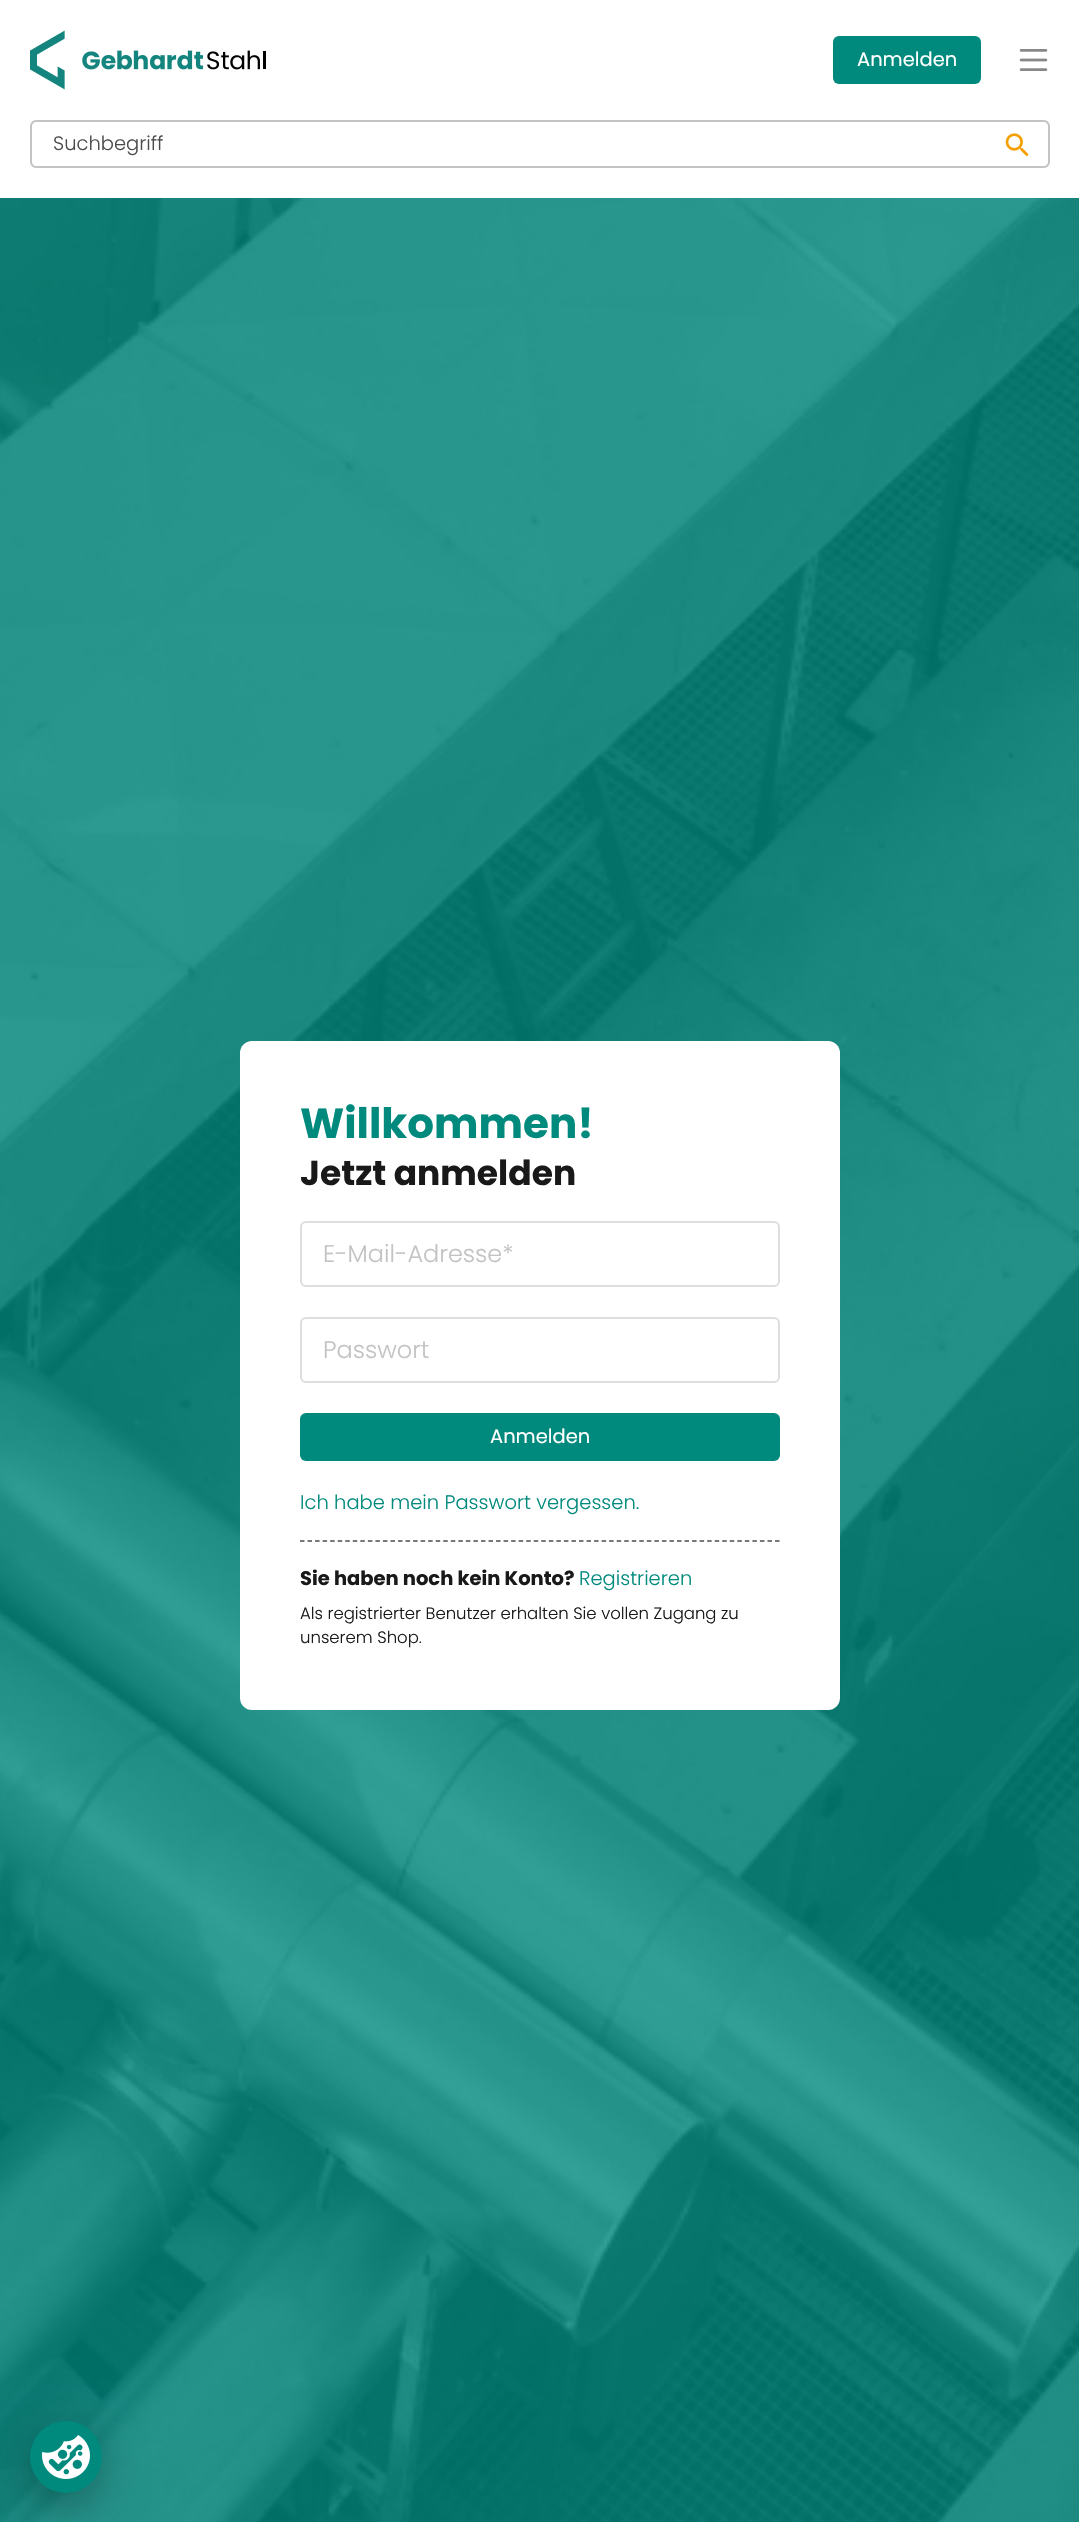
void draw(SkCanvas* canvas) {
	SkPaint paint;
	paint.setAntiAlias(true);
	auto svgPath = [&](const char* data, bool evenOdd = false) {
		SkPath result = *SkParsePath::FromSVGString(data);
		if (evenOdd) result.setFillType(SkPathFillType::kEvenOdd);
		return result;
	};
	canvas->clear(0xffffffff);
	canvas->drawImageRect(SkImages::DeferredFromEncodedData(SkData::MakeFromFileName("img1.png")), SkRect::MakeXYWH(30, 30, 236, 60), SkSamplingOptions());
	paint.setColor(0xff008a7d);
	canvas->drawRoundRect(SkRect::MakeXYWH(833, 36, 148, 48), 6, 6, paint);
	SkFont f1(fontMgr->matchFamilyStyle("Poppins", SkFontStyle::Normal()), 19.5);
	f1.setSubpixel(true);
	paint.setColor(0xffffffff);
	canvas->drawString("Anmelden", 857, 66, f1, paint);
	canvas->drawImageRect(SkImages::DeferredFromEncodedData(SkData::MakeFromFileName("img2.png")), SkRect::MakeXYWH(1019, 49, 29, 22), SkSamplingOptions());
	paint.setColor(0xffc4c4c4);
	canvas->drawPath(svgPath("M36 120H987V168H36C33 168 30 165 30 162V126C30 123 33 120 36 120ZM36 122H987V166H36C34 166 32 164 32 162V126C32 124 34 122 36 122Z", true), paint);
	SkFont f2(fontMgr->matchFamilyStyle("Poppins", SkFontStyle(300, SkFontStyle::kNormal_Width, SkFontStyle::kUpright_Slant)), 19.5);
	f2.setSubpixel(true);
	paint.setColor(0xff4b4b4b);
	canvas->drawString("Suchbegriff", 53, 150, f2, paint);
	paint.setColor(0xffffffff);
	canvas->drawPath(svgPath("M986 120H1044C1047.5 120 1050 122.5 1050 126V162C1050 165.5 1047.5 168 1044 168H986Z"), paint);
	paint.setColor(0xffc4c4c4);
	canvas->drawPath(svgPath("M986 120H1044C1047 120 1050 123 1050 126V162C1050 165 1047 168 1044 168H986ZM986 122H1044C1046 122 1048 124 1048 126V162C1048 164 1046 166 1044 166H986Z", true), paint);
	canvas->drawImageRect(SkImages::DeferredFromEncodedData(SkData::MakeFromFileName("img3.png")), SkRect::MakeXYWH(1005, 133, 24, 23), SkSamplingOptions());
	canvas->drawImageRect(SkImages::DeferredFromEncodedData(SkData::MakeFromFileName("img4.png")), SkRect::MakeXYWH(0, 198, 1079, 2324), SkSamplingOptions());
	paint.setColor(0xffffffff);
	canvas->drawRoundRect(SkRect::MakeXYWH(240, 1041, 600, 669), 12, 12, paint);
	SkFont f3(fontMgr->matchFamilyStyle("Poppins", SkFontStyle::Bold()), 42);
	f3.setSubpixel(true);
	paint.setColor(0xff008a7d);
	canvas->drawString("Willkommen!", 300, 1138, f3, paint);
	SkFont f4(fontMgr->matchFamilyStyle("Poppins", SkFontStyle::Bold()), 34.5);
	f4.setSubpixel(true);
	paint.setColor(0xff191919);
	canvas->drawString("Jetzt anmelden", 300, 1185, f4, paint);
	paint.setStroke(true);
	paint.setStrokeWidth(2);
	paint.setColor(0xffdedede);
	canvas->drawRoundRect(SkRect::MakeXYWH(301, 1222, 478, 64), 5, 5, paint);
	SkFont f5(fontMgr->matchFamilyStyle("Poppins", SkFontStyle(300, SkFontStyle::kNormal_Width, SkFontStyle::kUpright_Slant)), 24);
	f5.setSubpixel(true);
	paint.setStroke(false);
	paint.setColor(0xffc3c3c3);
	canvas->drawString("E-Mail-Adresse*", 323, 1262, f5, paint);
	paint.setStroke(true);
	paint.setColor(0xffdedede);
	canvas->drawRoundRect(SkRect::MakeXYWH(301, 1318, 478, 64), 5, 5, paint);
	paint.setStroke(false);
	paint.setColor(0xffc3c3c3);
	canvas->drawString("Passwort", 323, 1358, f5, paint);
	paint.setColor(0xff008a7d);
	canvas->drawRoundRect(SkRect::MakeXYWH(300, 1413, 480, 48), 6, 6, paint);
	paint.setColor(0xffffffff);
	canvas->drawString("Anmelden", 490, 1443, f1, paint);
	paint.setColor(0xff008a7d);
	canvas->drawString("Ich habe mein Passwort vergessen.", 300, 1509, f2, paint);
	paint.setStroke(true);
	paint.setStrokeWidth(1.5);
	paint.setColor(0xff4b4b4b);
	paint.setPathEffect(SkDashPathEffect::Make({{4.5f, 3.04f}}, 0));
	canvas->drawPath(svgPath("M300 1541H780"), paint);
	paint.setPathEffect(nullptr);
	SkFont f6(fontMgr->matchFamilyStyle("Poppins", SkFontStyle::Bold()), 19.5);
	f6.setSubpixel(true);
	paint.setStroke(false);
	paint.setColor(0xff191919);
	canvas->drawString("Sie haben noch kein Konto?", 300, 1585, f6, paint);
	paint.setColor(0xff008a7d);
	canvas->drawString("Registrieren", 579, 1585, f2, paint);
	SkFont f7(fontMgr->matchFamilyStyle("Poppins", SkFontStyle(300, SkFontStyle::kNormal_Width, SkFontStyle::kUpright_Slant)), 16.5);
	f7.setSubpixel(true);
	paint.setColor(0xff191919);
	canvas->drawString("Als registrierter Benutzer erhalten Sie vollen Zugang zu", 300, 1619, f7, paint);
	canvas->drawString("unserem Shop.", 300, 1643, f7, paint);
	paint.setColor(0x4d000002);
	paint.setMaskFilter(SkMaskFilter::MakeBlur(kNormal_SkBlurStyle, 22.5));
	canvas->drawRoundRect(SkRect::MakeXYWH(30, 2436, 72, 72), 36, 36, paint);
	paint.setMaskFilter(nullptr);
	paint.setColor(0xff008a7d);
	canvas->drawCircle(66, 2457, 36, paint);
	canvas->drawImageRect(SkImages::DeferredFromEncodedData(SkData::MakeFromFileName("img5.png")), SkRect::MakeXYWH(42, 2435, 48, 44), SkSamplingOptions());
}
